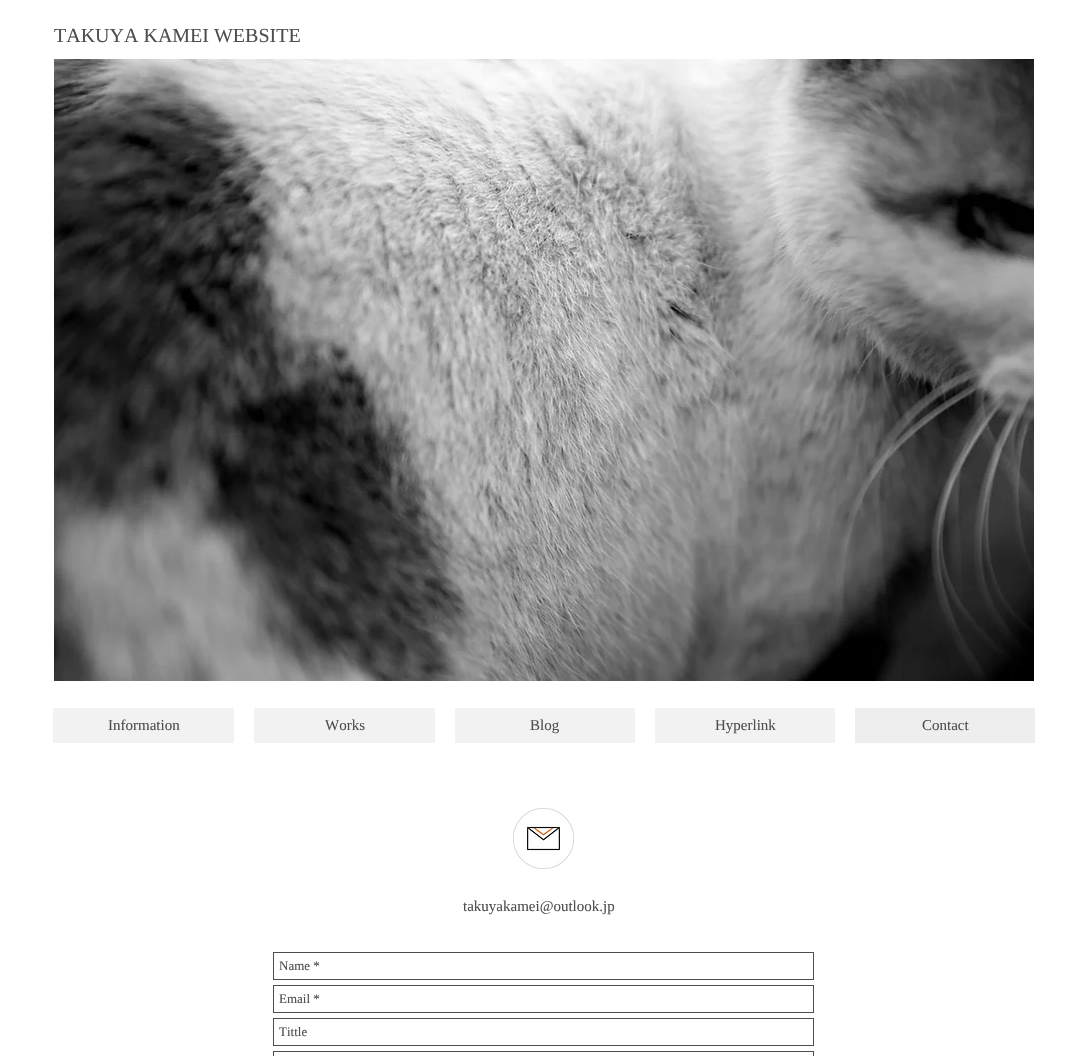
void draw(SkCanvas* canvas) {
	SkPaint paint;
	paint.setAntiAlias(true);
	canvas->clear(0xffffffff);
	SkFont f1(fontMgr->matchFamilyStyle("Liberation Serif", SkFontStyle::Normal()), 20);
	f1.setSubpixel(true);
	paint.setColor(0xff4e4e4e);
	canvas->drawString("TAKUYA KAMEI WEBSITE", 54, 42, f1, paint);
	canvas->drawImageRect(SkImages::DeferredFromEncodedData(SkData::MakeFromFileName("img1.png")), SkRect::MakeXYWH(54, 59, 980, 622), SkSamplingOptions());
	paint.setColor(0xfff2f2f2);
	canvas->drawRect(SkRect::MakeXYWH(53, 708, 181, 35), paint);
	SkFont f2(fontMgr->matchFamilyStyle("Liberation Serif", SkFontStyle::Normal()), 15);
	f2.setSubpixel(true);
	paint.setColor(0xff4e4e4e);
	canvas->drawString("Information", 108, 730, f2, paint);
	paint.setColor(0xfff2f2f2);
	canvas->drawRect(SkRect::MakeXYWH(254, 708, 181, 35), paint);
	paint.setColor(0xff4e4e4e);
	canvas->drawString("Works", 325, 730, f2, paint);
	paint.setColor(0xfff2f2f2);
	canvas->drawRect(SkRect::MakeXYWH(455, 708, 180, 35), paint);
	paint.setColor(0xff4e4e4e);
	canvas->drawString("Blog", 530, 730, f2, paint);
	paint.setColor(0xfff2f2f2);
	canvas->drawRect(SkRect::MakeXYWH(655, 708, 180, 35), paint);
	paint.setColor(0xff4e4e4e);
	canvas->drawString("Hyperlink", 715, 730, f2, paint);
	paint.setColor(0xffeeeeee);
	canvas->drawRect(SkRect::MakeXYWH(855, 708, 180, 35), paint);
	paint.setColor(0xff4e4e4e);
	canvas->drawString("Contact", 922, 730, f2, paint);
	canvas->drawImageRect(SkImages::DeferredFromEncodedData(SkData::MakeFromFileName("img2.png")), SkRect::MakeXYWH(513, 808, 61, 61), SkSamplingOptions());
	canvas->drawString("takuyakamei@outlook.jp", 463, 911, f2, paint);
	paint.setStroke(true);
	paint.setStrokeWidth(1);
	canvas->drawRect(SkRect::MakeXYWH(273.5, 952.5, 540, 27), paint);
	SkFont f3(fontMgr->matchFamilyStyle("Liberation Serif", SkFontStyle::Normal()), 13);
	f3.setSubpixel(true);
	paint.setStroke(false);
	canvas->drawString("Name *", 279, 970, f3, paint);
	paint.setStroke(true);
	canvas->drawRect(SkRect::MakeXYWH(273.5, 985.5, 540, 27), paint);
	paint.setStroke(false);
	canvas->drawString("Email *", 279, 1003, f3, paint);
	paint.setStroke(true);
	canvas->drawRect(SkRect::MakeXYWH(273.5, 1018.5, 540, 27), paint);
	paint.setStroke(false);
	canvas->drawString("Tittle", 279, 1036, f3, paint);
	paint.setStroke(true);
	canvas->drawRect(SkRect::MakeXYWH(273.5, 1051.5, 540, 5), paint);
}
